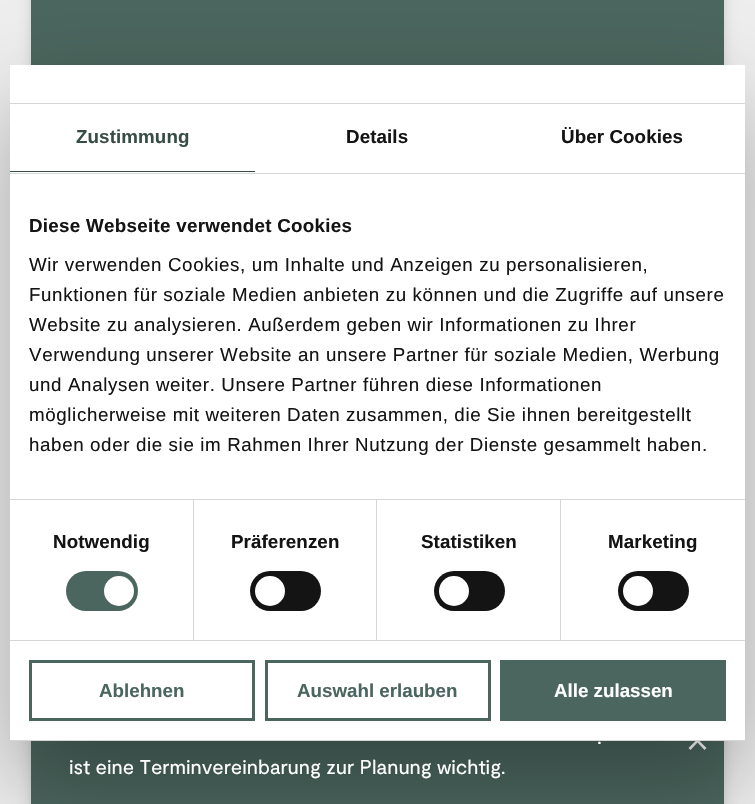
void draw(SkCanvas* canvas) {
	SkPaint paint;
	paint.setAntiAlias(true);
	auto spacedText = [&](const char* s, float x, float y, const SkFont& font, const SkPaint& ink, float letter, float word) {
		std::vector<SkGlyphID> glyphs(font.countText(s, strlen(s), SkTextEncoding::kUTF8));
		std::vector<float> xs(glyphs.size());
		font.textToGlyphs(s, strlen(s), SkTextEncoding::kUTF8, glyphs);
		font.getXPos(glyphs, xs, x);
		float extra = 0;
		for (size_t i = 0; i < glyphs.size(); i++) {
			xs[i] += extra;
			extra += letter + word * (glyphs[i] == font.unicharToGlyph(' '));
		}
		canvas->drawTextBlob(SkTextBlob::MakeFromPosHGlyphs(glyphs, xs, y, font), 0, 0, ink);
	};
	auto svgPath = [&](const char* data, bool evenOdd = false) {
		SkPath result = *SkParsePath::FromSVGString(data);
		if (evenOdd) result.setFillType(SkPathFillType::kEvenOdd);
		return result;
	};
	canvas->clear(0xffeeeeee);
	paint.setColor(0x26000000);
	paint.setMaskFilter(SkMaskFilter::MakeBlur(kNormal_SkBlurStyle, 6));
	canvas->drawRoundRect(SkRect::MakeXYWH(31, -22, 693, 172), 4, 4, paint);
	paint.setMaskFilter(nullptr);
	paint.setColor(0xff4b665e);
	canvas->drawRect(SkRect::MakeXYWH(31, 0, 693, 65), paint);
	paint.setColor(0x26000000);
	paint.setMaskFilter(SkMaskFilter::MakeBlur(kNormal_SkBlurStyle, 6));
	canvas->drawRoundRect(SkRect::MakeXYWH(31, 603, 693, 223), 4, 4, paint);
	paint.setMaskFilter(nullptr);
	paint.setColor(0xff4b665e);
	canvas->drawRect(SkRect::MakeXYWH(31, 741, 693, 63), paint);
	paint.setColor(0xffffffff);
	canvas->drawPath(svgPath("M706.5 748L697.5 739L688.5 748L690.5 750L697.5 742.5L704.5 750Z"), paint);
	paint.setColor(0x4d000000);
	paint.setMaskFilter(SkMaskFilter::MakeBlur(kNormal_SkBlurStyle, 42.5));
	canvas->drawRect(SkRect::MakeXYWH(10, 105, 735, 676), paint);
	paint.setMaskFilter(nullptr);
	paint.setColor(0xffffffff);
	canvas->drawRect(SkRect::MakeXYWH(10, 65, 735, 675), paint);
	paint.setColor(0xffd6d6d6);
	canvas->drawRect(SkRect::MakeXYWH(10, 103, 735, 1), paint);
	canvas->drawRect(SkRect::MakeXYWH(10, 173, 735, 1), paint);
	paint.setColor(0xff394d47);
	canvas->drawRect(SkRect::MakeXYWH(10, 171, 245, 1), paint);
	SkFont f1(fontMgr->matchFamilyStyle("Liberation Sans", SkFontStyle::Bold()), 18.75);
	f1.setSubpixel(true);
	spacedText("Zustimmung", 76, 143, f1, paint, 0.1, 0);
	paint.setColor(0xff141414);
	spacedText("Details", 346, 143, f1, paint, 0.1, 0);
	spacedText("Über Cookies", 561, 143, f1, paint, 0.1, 0);
	paint.setColor(0xffd6d6d6);
	canvas->drawRect(SkRect::MakeXYWH(10, 499, 735, 1), paint);
	paint.setColor(0xff141414);
	spacedText("Diese Webseite verwendet Cookies", 29, 232, f1, paint, 0.3, 0);
	SkFont f2(fontMgr->matchFamilyStyle("Liberation Sans", SkFontStyle::Normal()), 18.75);
	f2.setSubpixel(true);
	spacedText("Wir verwenden Cookies, um Inhalte und Anzeigen zu personalisieren,", 29, 271, f2, paint, 0.62, 0);
	spacedText("Funktionen für soziale Medien anbieten zu können und die Zugriffe auf unsere", 29, 301, f2, paint, 0.62, 0);
	spacedText("Website zu analysieren. Außerdem geben wir Informationen zu Ihrer", 29, 331, f2, paint, 0.62, 0);
	spacedText("Verwendung unserer Website an unsere Partner für soziale Medien, Werbung", 29, 361, f2, paint, 0.62, 0);
	spacedText("und Analysen weiter. Unsere Partner führen diese Informationen", 29, 391, f2, paint, 0.62, 0);
	spacedText("möglicherweise mit weiteren Daten zusammen, die Sie ihnen bereitgestellt", 29, 421, f2, paint, 0.62, 0);
	spacedText("haben oder die sie im Rahmen Ihrer Nutzung der Dienste gesammelt haben.", 29, 451, f2, paint, 0.62, 0);
	paint.setColor(0xffd6d6d6);
	canvas->drawRect(SkRect::MakeXYWH(10, 640, 735, 1), paint);
	canvas->drawRect(SkRect::MakeXYWH(193, 500, 1, 140), paint);
	paint.setColor(0xff141414);
	spacedText("Notwendig", 53, 548, f1, paint, 0.1, 0);
	paint.setColor(0xff4b665e);
	canvas->drawRoundRect(SkRect::MakeXYWH(66, 571, 72, 40), 20, 20, paint);
	paint.setColor(0xffffffff);
	canvas->drawCircle(119, 591, 15, paint);
	paint.setColor(0xffd6d6d6);
	canvas->drawRect(SkRect::MakeXYWH(376, 500, 1, 140), paint);
	paint.setColor(0xff141414);
	spacedText("Präferenzen", 231, 548, f1, paint, 0.1, 0);
	canvas->drawRoundRect(SkRect::MakeXYWH(250, 571, 71, 40), 20, 20, paint);
	paint.setColor(0xffffffff);
	canvas->drawCircle(270, 591, 15, paint);
	paint.setColor(0xffd6d6d6);
	canvas->drawRect(SkRect::MakeXYWH(560, 500, 1, 140), paint);
	paint.setColor(0xff141414);
	spacedText("Statistiken", 421, 548, f1, paint, 0.1, 0);
	canvas->drawRoundRect(SkRect::MakeXYWH(434, 571, 71, 40), 20, 20, paint);
	paint.setColor(0xffffffff);
	canvas->drawCircle(454, 591, 15, paint);
	paint.setColor(0xff141414);
	spacedText("Marketing", 608, 548, f1, paint, 0.1, 0);
	canvas->drawRoundRect(SkRect::MakeXYWH(618, 571, 71, 40), 20, 20, paint);
	paint.setColor(0xffffffff);
	canvas->drawCircle(638, 591, 15, paint);
	paint.setColor(0xffd6d6d6);
	canvas->drawRect(SkRect::MakeXYWH(10, 740, 735, 1), paint);
	paint.setStroke(true);
	paint.setStrokeWidth(3);
	paint.setColor(0xff4b665e);
	canvas->drawRect(SkRect::MakeXYWH(30.5, 661.5, 223, 58), paint);
	paint.setStroke(false);
	canvas->drawString("Ablehnen", 99, 697, f1, paint);
	paint.setStroke(true);
	canvas->drawRect(SkRect::MakeXYWH(266.5, 661.5, 223, 58), paint);
	paint.setStroke(false);
	canvas->drawString("Auswahl erlauben", 297, 697, f1, paint);
	canvas->drawRect(SkRect::MakeXYWH(500, 660, 226, 61), paint);
	paint.setColor(0xffffffff);
	canvas->drawString("Alle zulassen", 554, 697, f1, paint);
	SkFont f3(fontMgr->matchFamilyStyle("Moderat", SkFontStyle::Normal()), 20);
	f3.setSubpixel(true);
	canvas->drawString(".", 597, 744, f3, paint);
	canvas->drawString("ist eine Terminvereinbarung zur Planung wichtig.", 69, 774, f3, paint);
}
